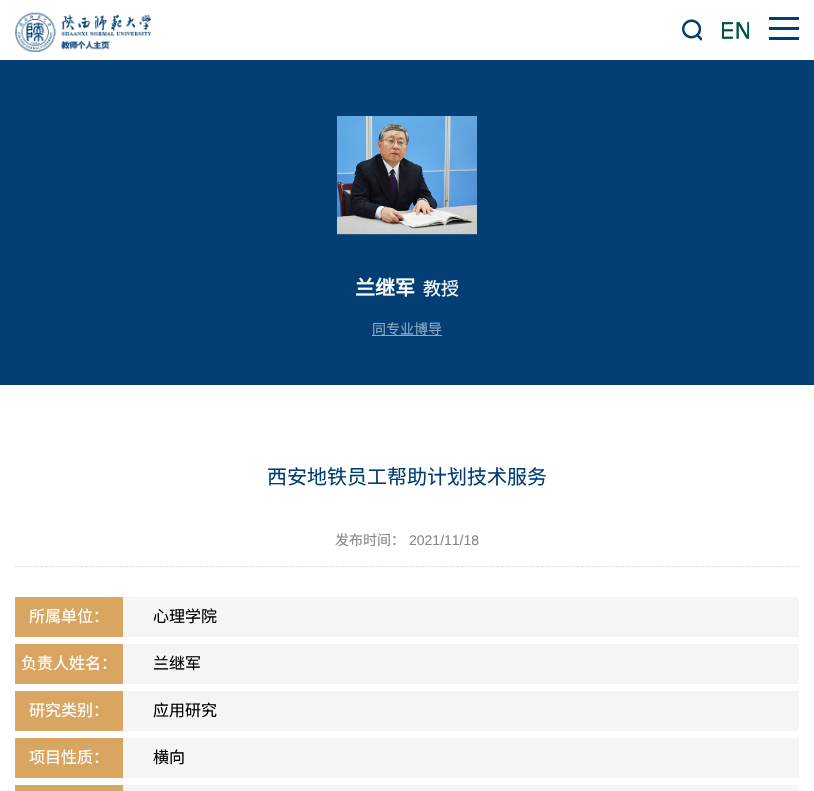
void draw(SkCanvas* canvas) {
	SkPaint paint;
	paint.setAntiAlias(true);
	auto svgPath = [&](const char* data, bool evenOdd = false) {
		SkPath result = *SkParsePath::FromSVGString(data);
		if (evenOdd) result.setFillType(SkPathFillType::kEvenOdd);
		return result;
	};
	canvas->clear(0xffffffff);
	canvas->drawImageRect(SkImages::DeferredFromEncodedData(SkData::MakeFromFileName("img1.png")), SkRect::MakeXYWH(15, 12, 136, 40), SkSamplingOptions());
	canvas->drawImageRect(SkImages::DeferredFromEncodedData(SkData::MakeFromFileName("img2.png")), SkRect::MakeXYWH(682, 19, 20, 22), SkSamplingOptions());
	canvas->drawImageRect(SkImages::DeferredFromEncodedData(SkData::MakeFromFileName("img3.png")), SkRect::MakeXYWH(722, 22, 27, 17), SkSamplingOptions());
	paint.setColor(0xff013e74);
	canvas->drawRect(SkRect::MakeXYWH(769, 17, 30, 3), paint);
	canvas->drawRect(SkRect::MakeXYWH(769, 27, 30, 3), paint);
	canvas->drawRect(SkRect::MakeXYWH(769, 37, 30, 3), paint);
	paint.setColor(0xff033f75);
	canvas->drawRect(SkRect::MakeXYWH(0, 60, 814, 325), paint);
	canvas->drawImageRect(SkImages::DeferredFromEncodedData(SkData::MakeFromFileName("img4.png")), SkRect::MakeXYWH(337, 116, 140, 119), SkSamplingOptions());
	SkFont f1(fontMgr->matchFamilyStyle("Noto Sans CJK SC", SkFontStyle::Bold()), 20);
	f1.setSubpixel(true);
	paint.setColor(0xffffffff);
	canvas->drawString("兰继军", 355, 295, f1, paint);
	SkFont f2(fontMgr->matchFamilyStyle("Noto Sans CJK SC", SkFontStyle::Normal()), 18);
	f2.setSubpixel(true);
	canvas->drawString("教授", 423, 295, f2, paint);
	paint.setColor(0xff8ba7c0);
	canvas->drawRect(SkRect::MakeXYWH(372, 335, 70, 1), paint);
	SkFont f3(fontMgr->matchFamilyStyle("Noto Sans CJK SC", SkFontStyle::Normal()), 14);
	f3.setSubpixel(true);
	paint.setColor(0xff8ca8c0);
	canvas->drawString("同专业博导", 372, 334, f3, paint);
	paint.setStroke(true);
	paint.setStrokeWidth(1);
	paint.setColor(0xffdddddd);
	paint.setPathEffect(SkDashPathEffect::Make({{3, 2.01f}}, 0));
	canvas->drawPath(svgPath("M15 566.5H799"), paint);
	paint.setPathEffect(nullptr);
	SkFont f4(fontMgr->matchFamilyStyle("Noto Sans CJK SC", SkFontStyle::Normal()), 20);
	f4.setSubpixel(true);
	paint.setStroke(false);
	paint.setColor(0xff013e74);
	canvas->drawString("西安地铁员工帮助计划技术服务", 267, 484, f4, paint);
	paint.setColor(0xff888888);
	canvas->drawString("发布时间：", 335, 545, f3, paint);
	SkFont f5(fontMgr->matchFamilyStyle("Liberation Sans", SkFontStyle::Normal()), 14);
	f5.setSubpixel(true);
	canvas->drawString("2021/11/18", 409, 545, f5, paint);
	paint.setColor(0xffd8a661);
	canvas->drawRect(SkRect::MakeXYWH(15, 597, 108, 40), paint);
	SkFont f6(fontMgr->matchFamilyStyle("Noto Sans CJK SC", SkFontStyle::Normal()), 16);
	f6.setSubpixel(true);
	paint.setColor(0xffffffff);
	canvas->drawString("所属单位：", 29, 622, f6, paint);
	paint.setColor(0xfff5f5f5);
	canvas->drawRect(SkRect::MakeXYWH(123, 597, 676, 40), paint);
	paint.setColor(0xff000000);
	canvas->drawString("心理学院", 153, 622, f6, paint);
	paint.setColor(0xffd8a661);
	canvas->drawRect(SkRect::MakeXYWH(15, 644, 108, 40), paint);
	paint.setColor(0xffffffff);
	canvas->drawString("负责人姓名：", 21, 669, f6, paint);
	paint.setColor(0xfff5f5f5);
	canvas->drawRect(SkRect::MakeXYWH(123, 644, 676, 40), paint);
	paint.setColor(0xff000000);
	canvas->drawString("兰继军", 153, 669, f6, paint);
	paint.setColor(0xffd8a661);
	canvas->drawRect(SkRect::MakeXYWH(15, 691, 108, 40), paint);
	paint.setColor(0xffffffff);
	canvas->drawString("研究类别：", 29, 716, f6, paint);
	paint.setColor(0xfff5f5f5);
	canvas->drawRect(SkRect::MakeXYWH(123, 691, 676, 40), paint);
	paint.setColor(0xff000000);
	canvas->drawString("应用研究", 153, 716, f6, paint);
	paint.setColor(0xffd8a661);
	canvas->drawRect(SkRect::MakeXYWH(15, 738, 108, 40), paint);
	paint.setColor(0xffffffff);
	canvas->drawString("项目性质：", 29, 763, f6, paint);
	paint.setColor(0xfff5f5f5);
	canvas->drawRect(SkRect::MakeXYWH(123, 738, 676, 40), paint);
	paint.setColor(0xff000000);
	canvas->drawString("横向", 153, 763, f6, paint);
	paint.setColor(0xffd8a661);
	canvas->drawRect(SkRect::MakeXYWH(15, 785, 108, 6), paint);
	paint.setColor(0xfff5f5f5);
	canvas->drawRect(SkRect::MakeXYWH(123, 785, 676, 6), paint);
}
